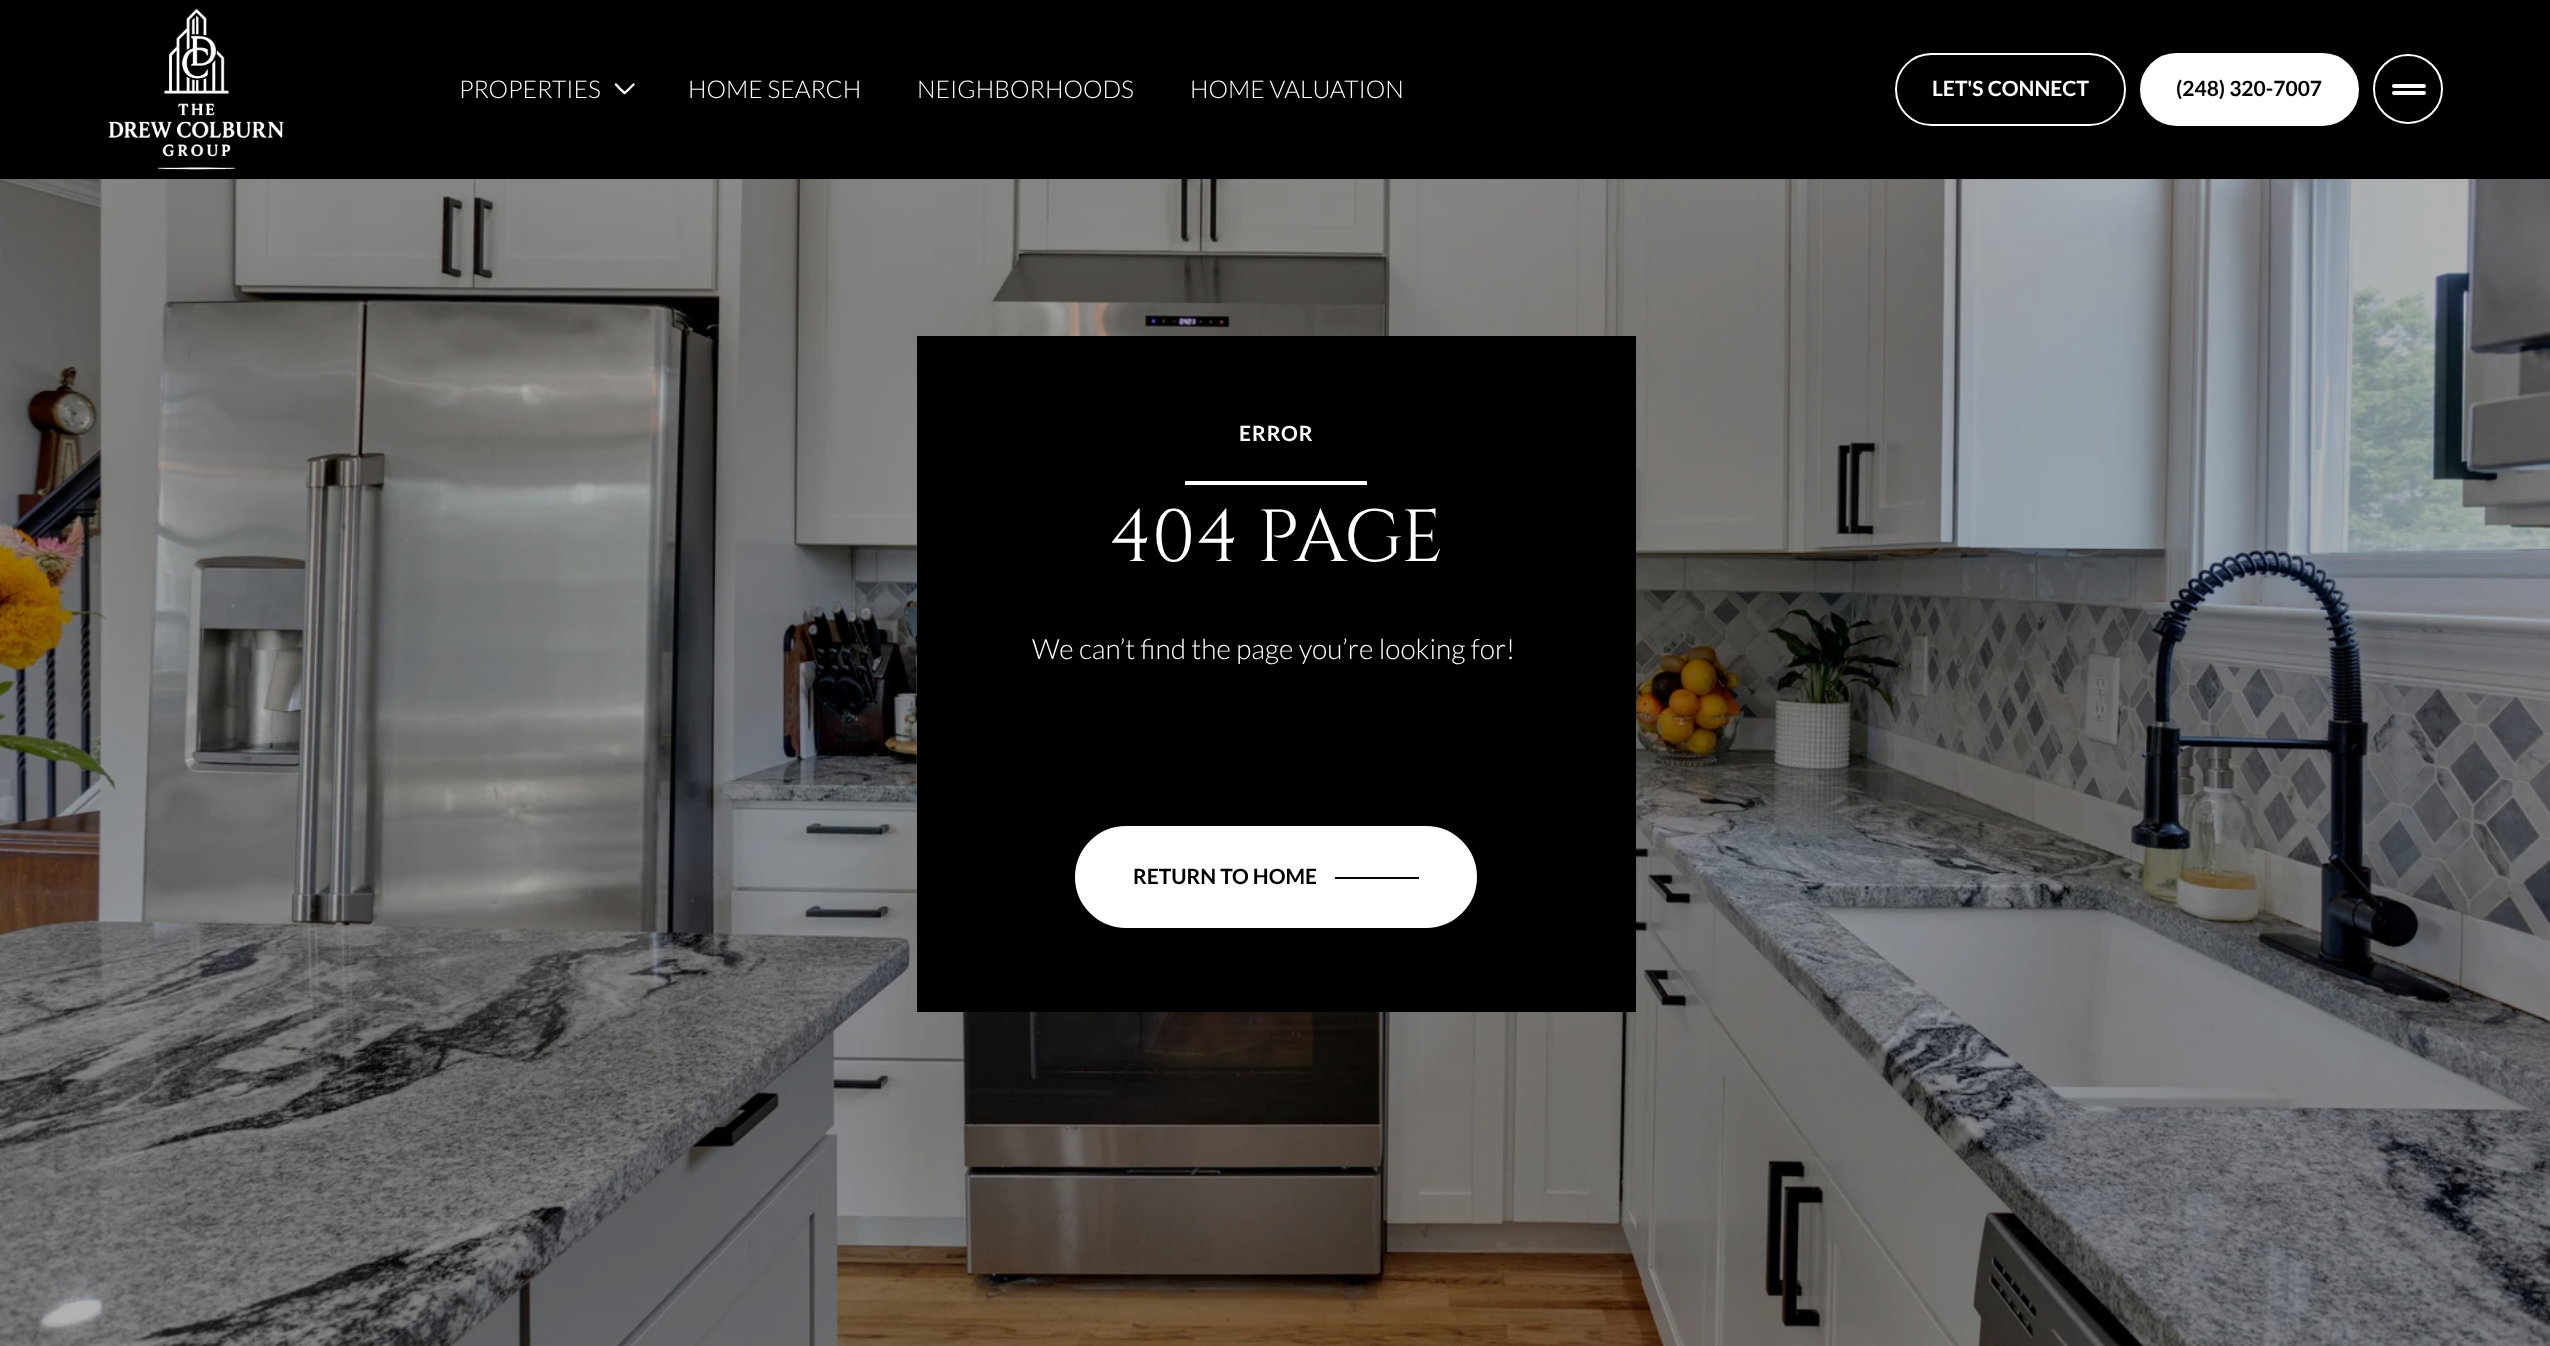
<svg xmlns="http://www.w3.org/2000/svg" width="2550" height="1346">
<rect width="100%" height="100%" fill="#fff"/>
<rect width="2550" height="179" fill="#000"/>
<image x="108" y="8" width="176" height="162" href="media/1.png"/>
<text x="459" y="98" style="font-family:Lato;font-size:24.5px;font-weight:300;fill:#fff">PROPERTIES</text>
<path d="M616 84.5c3 3.5 5 5.5 8.5 8.5c4-3 5.5-5 9-8.5" fill="none" stroke="#fff" stroke-width="2.4" stroke-linecap="round" stroke-linejoin="round"/>
<text x="688" y="98" style="font-family:Lato;font-size:24.5px;font-weight:300;fill:#fff">HOME SEARCH</text>
<text x="917" y="98" style="font-family:Lato;font-size:24.5px;font-weight:300;fill:#fff">NEIGHBORHOODS</text>
<text x="1190" y="98" style="font-family:Lato;font-size:24.5px;font-weight:300;fill:#fff">HOME VALUATION</text>
<rect x="1896" y="54" width="229" height="71" rx="35.5" fill="none" stroke="#fff" stroke-width="2"/>
<text x="1932" y="96" style="font-family:Lato;font-size:21px;font-weight:bold;fill:#fff">LET'S CONNECT</text>
<rect x="2141" y="54" width="217" height="71" rx="35.5" fill="#fff" stroke="#fff" stroke-width="2"/>
<text x="2176" y="96" style="font-family:Lato;font-size:21px;font-weight:bold;fill:#000">(248) 320-7007</text>
<circle cx="2408" cy="89" r="34" fill="none" stroke="#fff" stroke-width="2"/>
<rect x="2392" y="84" width="34" height="4" rx="2" fill="#fff"/>
<rect x="2392" y="91" width="34" height="4" rx="2" fill="#fff"/>
<image x="0" y="179" width="2550" height="1167" href="media/2.png"/>
<rect x="917" y="336" width="719" height="676" fill="#000"/>
<text x="1239" y="441" style="font-family:Lato;font-size:21px;font-weight:bold;letter-spacing:1px;fill:#fff">ERROR</text>
<rect x="1185" y="481" width="182" height="4" fill="#fff"/>
<text x="1109" y="561" style="font-family:Cinzel;font-size:73.5px;fill:#fff">404 PAGE</text>
<text x="1032" y="659" style="font-family:Lato;font-size:28px;font-weight:300;fill:#fff">We can’t find the page you’re looking for!</text>
<rect x="1076" y="827" width="400" height="100" rx="50" fill="#fff" stroke="#fff" stroke-width="2"/>
<text x="1133" y="884" style="font-family:Lato;font-size:21px;font-weight:bold;fill:#000">RETURN TO HOME</text>
<rect x="1335" y="877" width="84" height="2" fill="#000"/>
</svg>
